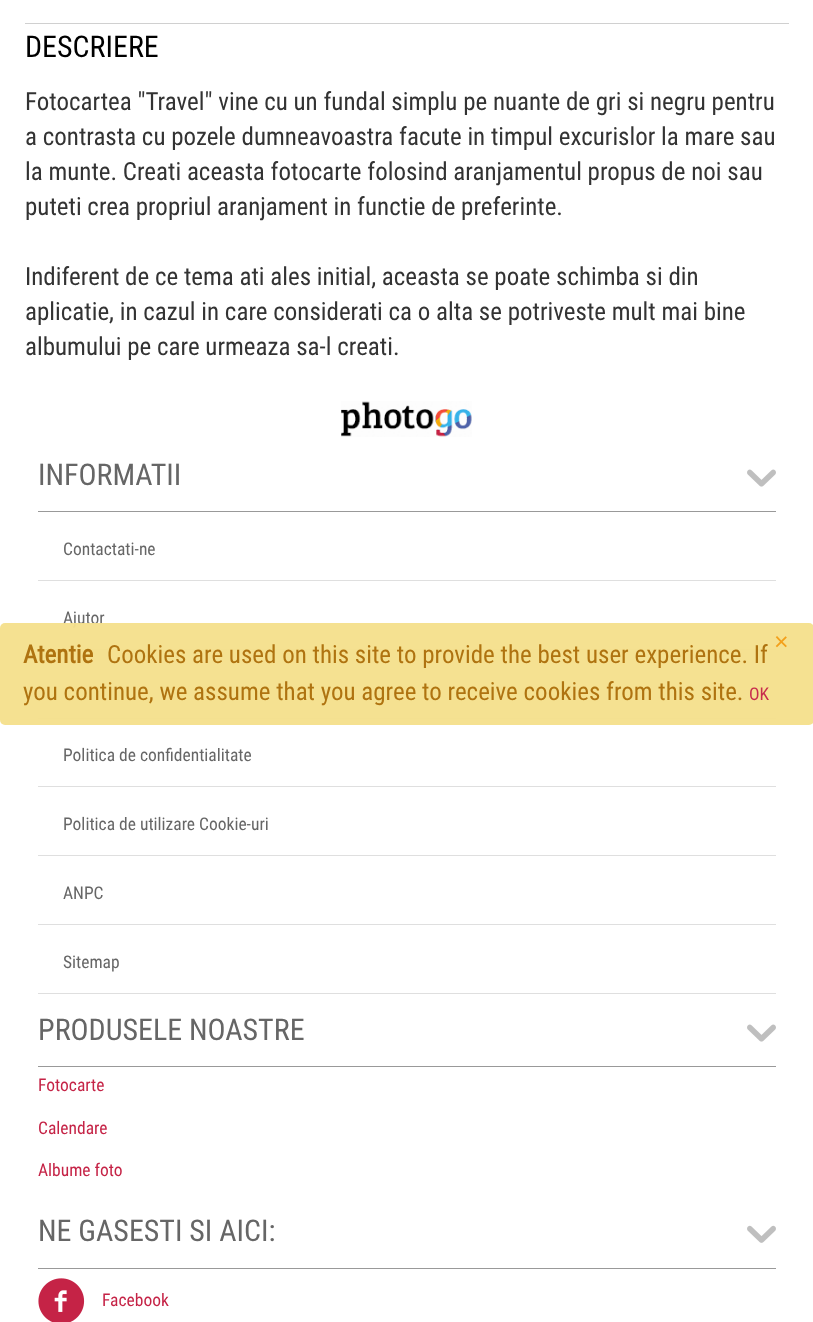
<svg xmlns="http://www.w3.org/2000/svg" width="813" height="1322">
<rect width="100%" height="100%" fill="#fff"/>
<rect x="25" y="23" width="764" height="1" fill="#d0d0d0"/>
<text x="25" y="57" style="font-family:Roboto Condensed;font-size:30px;fill:#000">DESCRIERE</text>
<text x="25" y="110" style="font-family:Roboto Condensed;font-size:25px;fill:#333">Fotocartea "Travel" vine cu un fundal simplu pe nuante de gri si negru pentru</text>
<text x="25" y="145" style="font-family:Roboto Condensed;font-size:25px;fill:#333">a contrasta cu pozele dumneavoastra facute in timpul excurislor la mare sau</text>
<text x="25" y="180" style="font-family:Roboto Condensed;font-size:25px;fill:#333">la munte. Creati aceasta fotocarte folosind aranjamentul propus de noi sau</text>
<text x="25" y="215" style="font-family:Roboto Condensed;font-size:25px;fill:#333">puteti crea propriul aranjament in functie de preferinte.</text>
<text x="25" y="285" style="font-family:Roboto Condensed;font-size:25px;fill:#333">Indiferent de ce tema ati ales initial, aceasta se poate schimba si din</text>
<text x="25" y="320" style="font-family:Roboto Condensed;font-size:25px;fill:#333">aplicatie, in cazul in care considerati ca o alta se potriveste mult mai bine</text>
<text x="25" y="355" style="font-family:Roboto Condensed;font-size:25px;fill:#333">albumului pe care urmeaza sa-l creati.</text>
<image x="341" y="401" width="131" height="36" href="media/1.png"/>
<rect x="38" y="511" width="738" height="1" fill="#999"/>
<text x="38" y="485" style="font-family:Roboto Condensed;font-size:30px;fill:#666">INFORMATII</text>
<image x="747" y="469" width="29" height="18" href="media/2.png"/>
<rect x="38" y="580" width="738" height="1" fill="#dfdfdf"/>
<text x="63" y="555" style="font-family:Roboto Condensed;font-size:17.5px;fill:#666">Contactati-ne</text>
<rect x="38" y="649" width="738" height="1" fill="#dfdfdf"/>
<text x="63" y="624" style="font-family:Roboto Condensed;font-size:17.5px;fill:#666">Ajutor</text>
<rect x="38" y="718" width="738" height="1" fill="#dfdfdf"/>
<rect x="38" y="786" width="738" height="1" fill="#dfdfdf"/>
<text x="63" y="761" style="font-family:Roboto Condensed;font-size:17.5px;fill:#666">Politica de confidentialitate</text>
<rect x="38" y="855" width="738" height="1" fill="#dfdfdf"/>
<text x="63" y="830" style="font-family:Roboto Condensed;font-size:17.5px;fill:#666">Politica de utilizare Cookie-uri</text>
<rect x="38" y="924" width="738" height="1" fill="#dfdfdf"/>
<text x="63" y="899" style="font-family:Roboto Condensed;font-size:17.5px;fill:#666">ANPC</text>
<rect x="38" y="993" width="738" height="1" fill="#dfdfdf"/>
<text x="63" y="968" style="font-family:Roboto Condensed;font-size:17.5px;fill:#666">Sitemap</text>
<rect x="38" y="1066" width="738" height="1" fill="#999"/>
<text x="38" y="1040" style="font-family:Roboto Condensed;font-size:30px;fill:#666">PRODUSELE NOASTRE</text>
<image x="747" y="1024" width="29" height="18" href="media/2.png"/>
<text x="38" y="1091" style="font-family:Roboto Condensed;font-size:17.5px;fill:#c52346">Fotocarte</text>
<text x="38" y="1134" style="font-family:Roboto Condensed;font-size:17.5px;fill:#c52346">Calendare</text>
<text x="38" y="1176" style="font-family:Roboto Condensed;font-size:17.5px;fill:#c52346">Albume foto</text>
<rect x="38" y="1268" width="738" height="1" fill="#999"/>
<text x="38" y="1241" style="font-family:Roboto Condensed;font-size:30px;fill:#666">NE GASESTI SI AICI:</text>
<image x="747" y="1225" width="29" height="18" href="media/3.png"/>
<image x="38" y="1278" width="47" height="44" href="media/4.png"/>
<text x="102" y="1306" style="font-family:Roboto Condensed;font-size:17.5px;fill:#c52346">Facebook</text>
<rect y="623" width="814" height="102" rx="5" fill="#f5e08cf5"/>
<text x="774" y="650" style="font-family:Liberation Sans;font-size:25px;fill:#f3a01b">×</text>
<text x="23" y="663" style="font-family:Roboto Condensed;font-size:25px;font-weight:bold;fill:#af7310">Atentie</text>
<text x="107" y="663" style="font-family:Roboto Condensed;font-size:25px;fill:#af7310">Cookies are used on this site to provide the best user experience. If</text>
<text x="23" y="700" style="font-family:Roboto Condensed;font-size:25px;fill:#af7310">you continue, we assume that you agree to receive cookies from this site.</text>
<text x="749" y="700" style="font-family:Roboto Condensed;font-size:17.5px;fill:#c72c4d">OK</text>
</svg>
